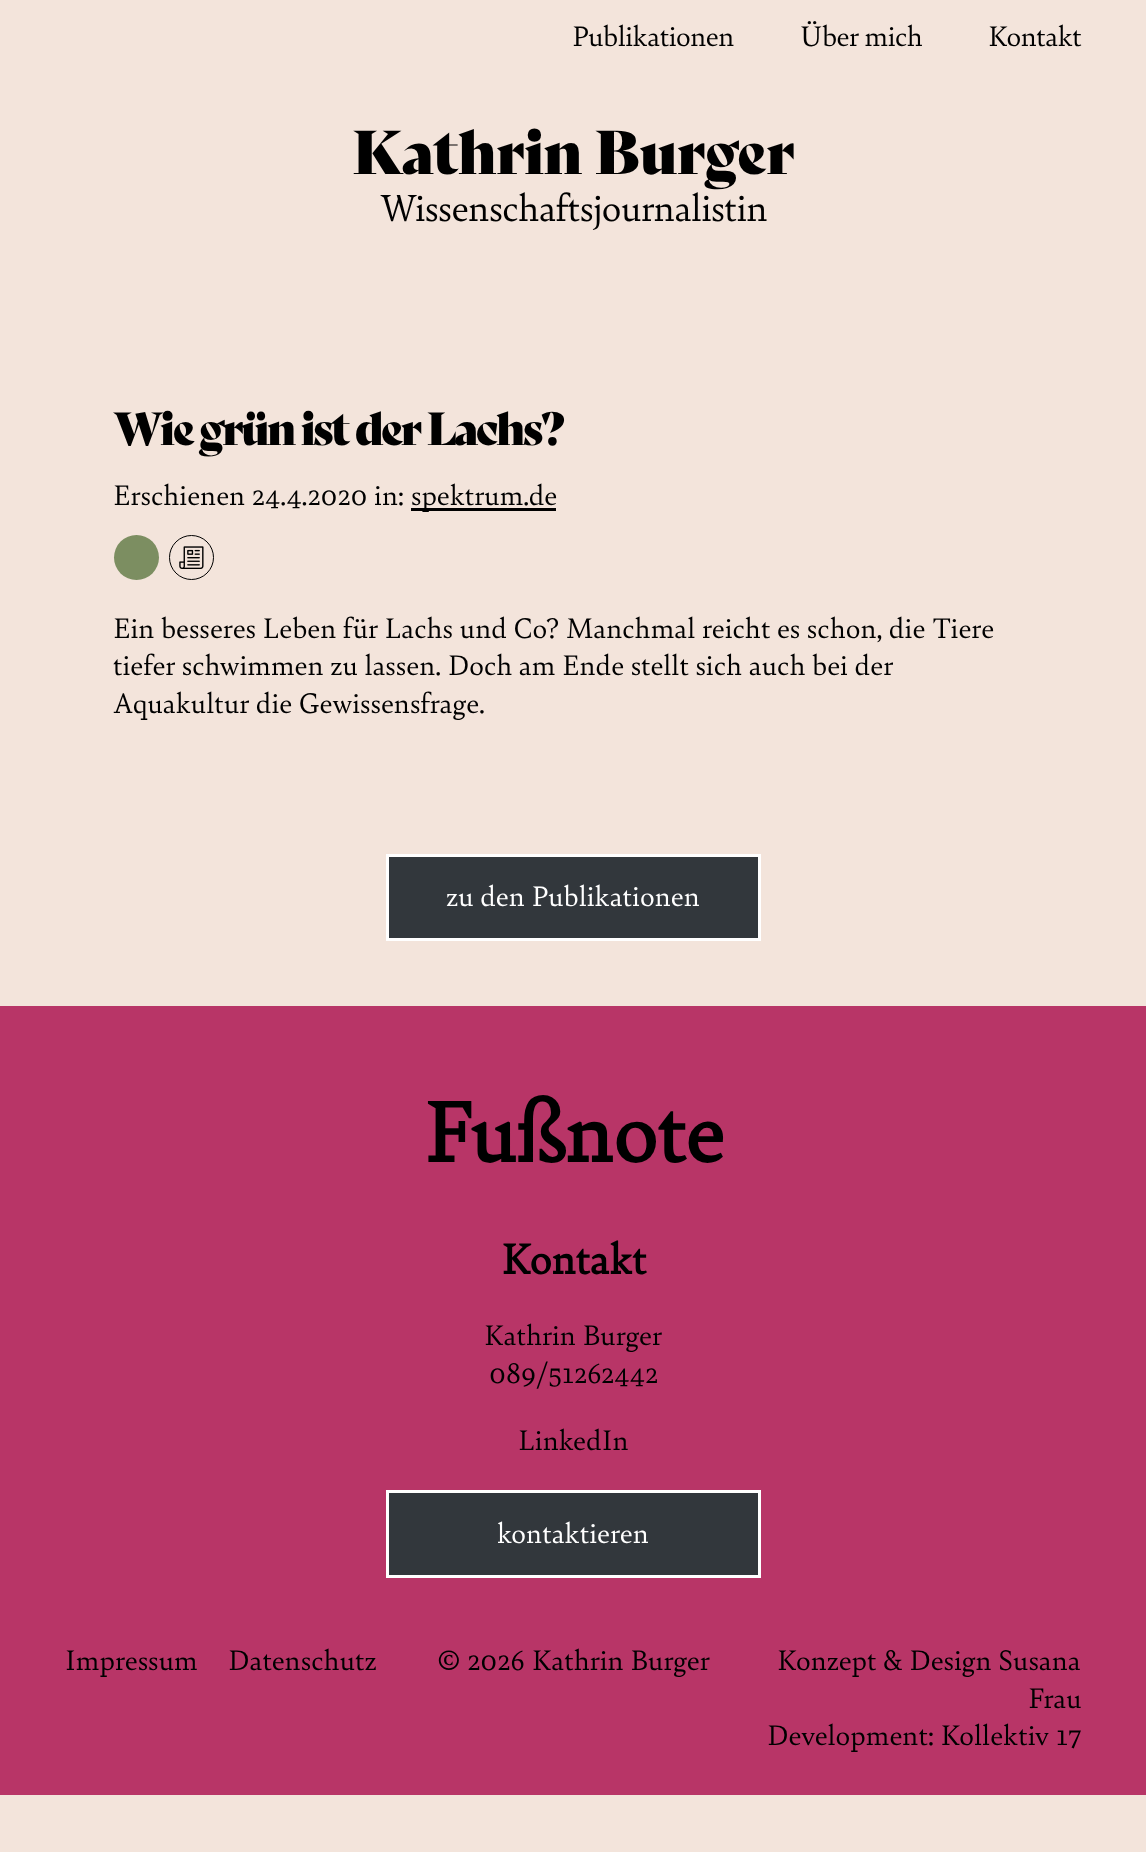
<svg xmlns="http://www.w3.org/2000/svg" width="1146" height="1852">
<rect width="100%" height="100%" fill="#f3e4db"/>
<text x="572" y="46" style="font-family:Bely;font-size:30px;letter-spacing:-0.5px;fill:#000">Publikationen</text>
<text x="800" y="46" style="font-family:Bely;font-size:30px;letter-spacing:-0.5px;fill:#000">Über mich</text>
<text x="988" y="46" style="font-family:Bely;font-size:30px;letter-spacing:-0.5px;fill:#000">Kontakt</text>
<text x="352" y="174" style="font-family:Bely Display;font-size:60px;letter-spacing:-0.9px;fill:#000">Kathrin Burger</text>
<text x="380" y="221" style="font-family:Bely;font-size:40px;letter-spacing:-0.6px;fill:#000">Wissenschaftsjournalistin</text>
<text x="113" y="445" style="font-family:Bely Display;font-size:45px;letter-spacing:-2.8px;fill:#000">Wie grün ist der Lachs?</text>
<text x="113" y="505" style="font-family:Bely;font-size:30px;fill:#000">Erschienen 24.4.2020 in:</text>
<rect x="411" y="508" width="145" height="3" fill="#000"/>
<text x="411" y="505" style="font-family:Bely;font-size:30px;fill:#000">spektrum.de</text>
<circle cx="136.5" cy="557.5" r="22.5" fill="#7c8e61"/>
<image x="179" y="546" width="25" height="23" href="media/1.png"/>
<circle cx="191.5" cy="557.5" r="22" fill="none" stroke="#000"/>
<text x="113" y="638" style="font-family:Bely;font-size:30px;fill:#000">Ein besseres Leben für Lachs und Co? Manchmal reicht es schon, die Tiere</text>
<text x="113" y="675" style="font-family:Bely;font-size:30px;fill:#000">tiefer schwimmen zu lassen. Doch am Ende stellt sich auch bei der</text>
<text x="113" y="713" style="font-family:Bely;font-size:30px;fill:#000">Aquakultur die Gewissensfrage.</text>
<rect x="387.5" y="855.5" width="372" height="84" fill="#32373c" stroke="#fff" stroke-width="3"/>
<text x="446" y="906" style="font-family:Bely;font-size:30px;fill:#fff">zu den Publikationen</text>
<rect y="1006" width="1146" height="789" fill="#b83567"/>
<text x="423" y="1162" style="font-family:Bely;font-size:90px;font-weight:bold;fill:#000">Fußnote</text>
<text x="501" y="1274" style="font-family:Bely;font-size:45px;font-weight:bold;fill:#000">Kontakt</text>
<text x="484" y="1345" style="font-family:Bely;font-size:30px;fill:#000">Kathrin Burger</text>
<text x="489" y="1383" style="font-family:Bely;font-size:30px;fill:#000">089/51262442</text>
<text x="518" y="1450" style="font-family:Bely;font-size:30px;fill:#000">LinkedIn</text>
<rect x="387.5" y="1491.5" width="372" height="85" fill="#32373c" stroke="#fff" stroke-width="3"/>
<text x="497" y="1543" style="font-family:Bely;font-size:30px;fill:#fff">kontaktieren</text>
<text x="65" y="1670" style="font-family:Bely;font-size:30px;fill:#000">Impressum</text>
<text x="228" y="1670" style="font-family:Bely;font-size:30px;fill:#000">Datenschutz</text>
<text x="437" y="1670" style="font-family:Bely;font-size:30px;fill:#000">© 2026 Kathrin Burger</text>
<text x="777" y="1670" style="font-family:Bely;font-size:30px;fill:#000">Konzept &amp; Design Susana</text>
<text x="1028" y="1708" style="font-family:Bely;font-size:30px;fill:#000">Frau</text>
<text x="767" y="1745" style="font-family:Bely;font-size:30px;fill:#000">Development: Kollektiv 17</text>
</svg>
